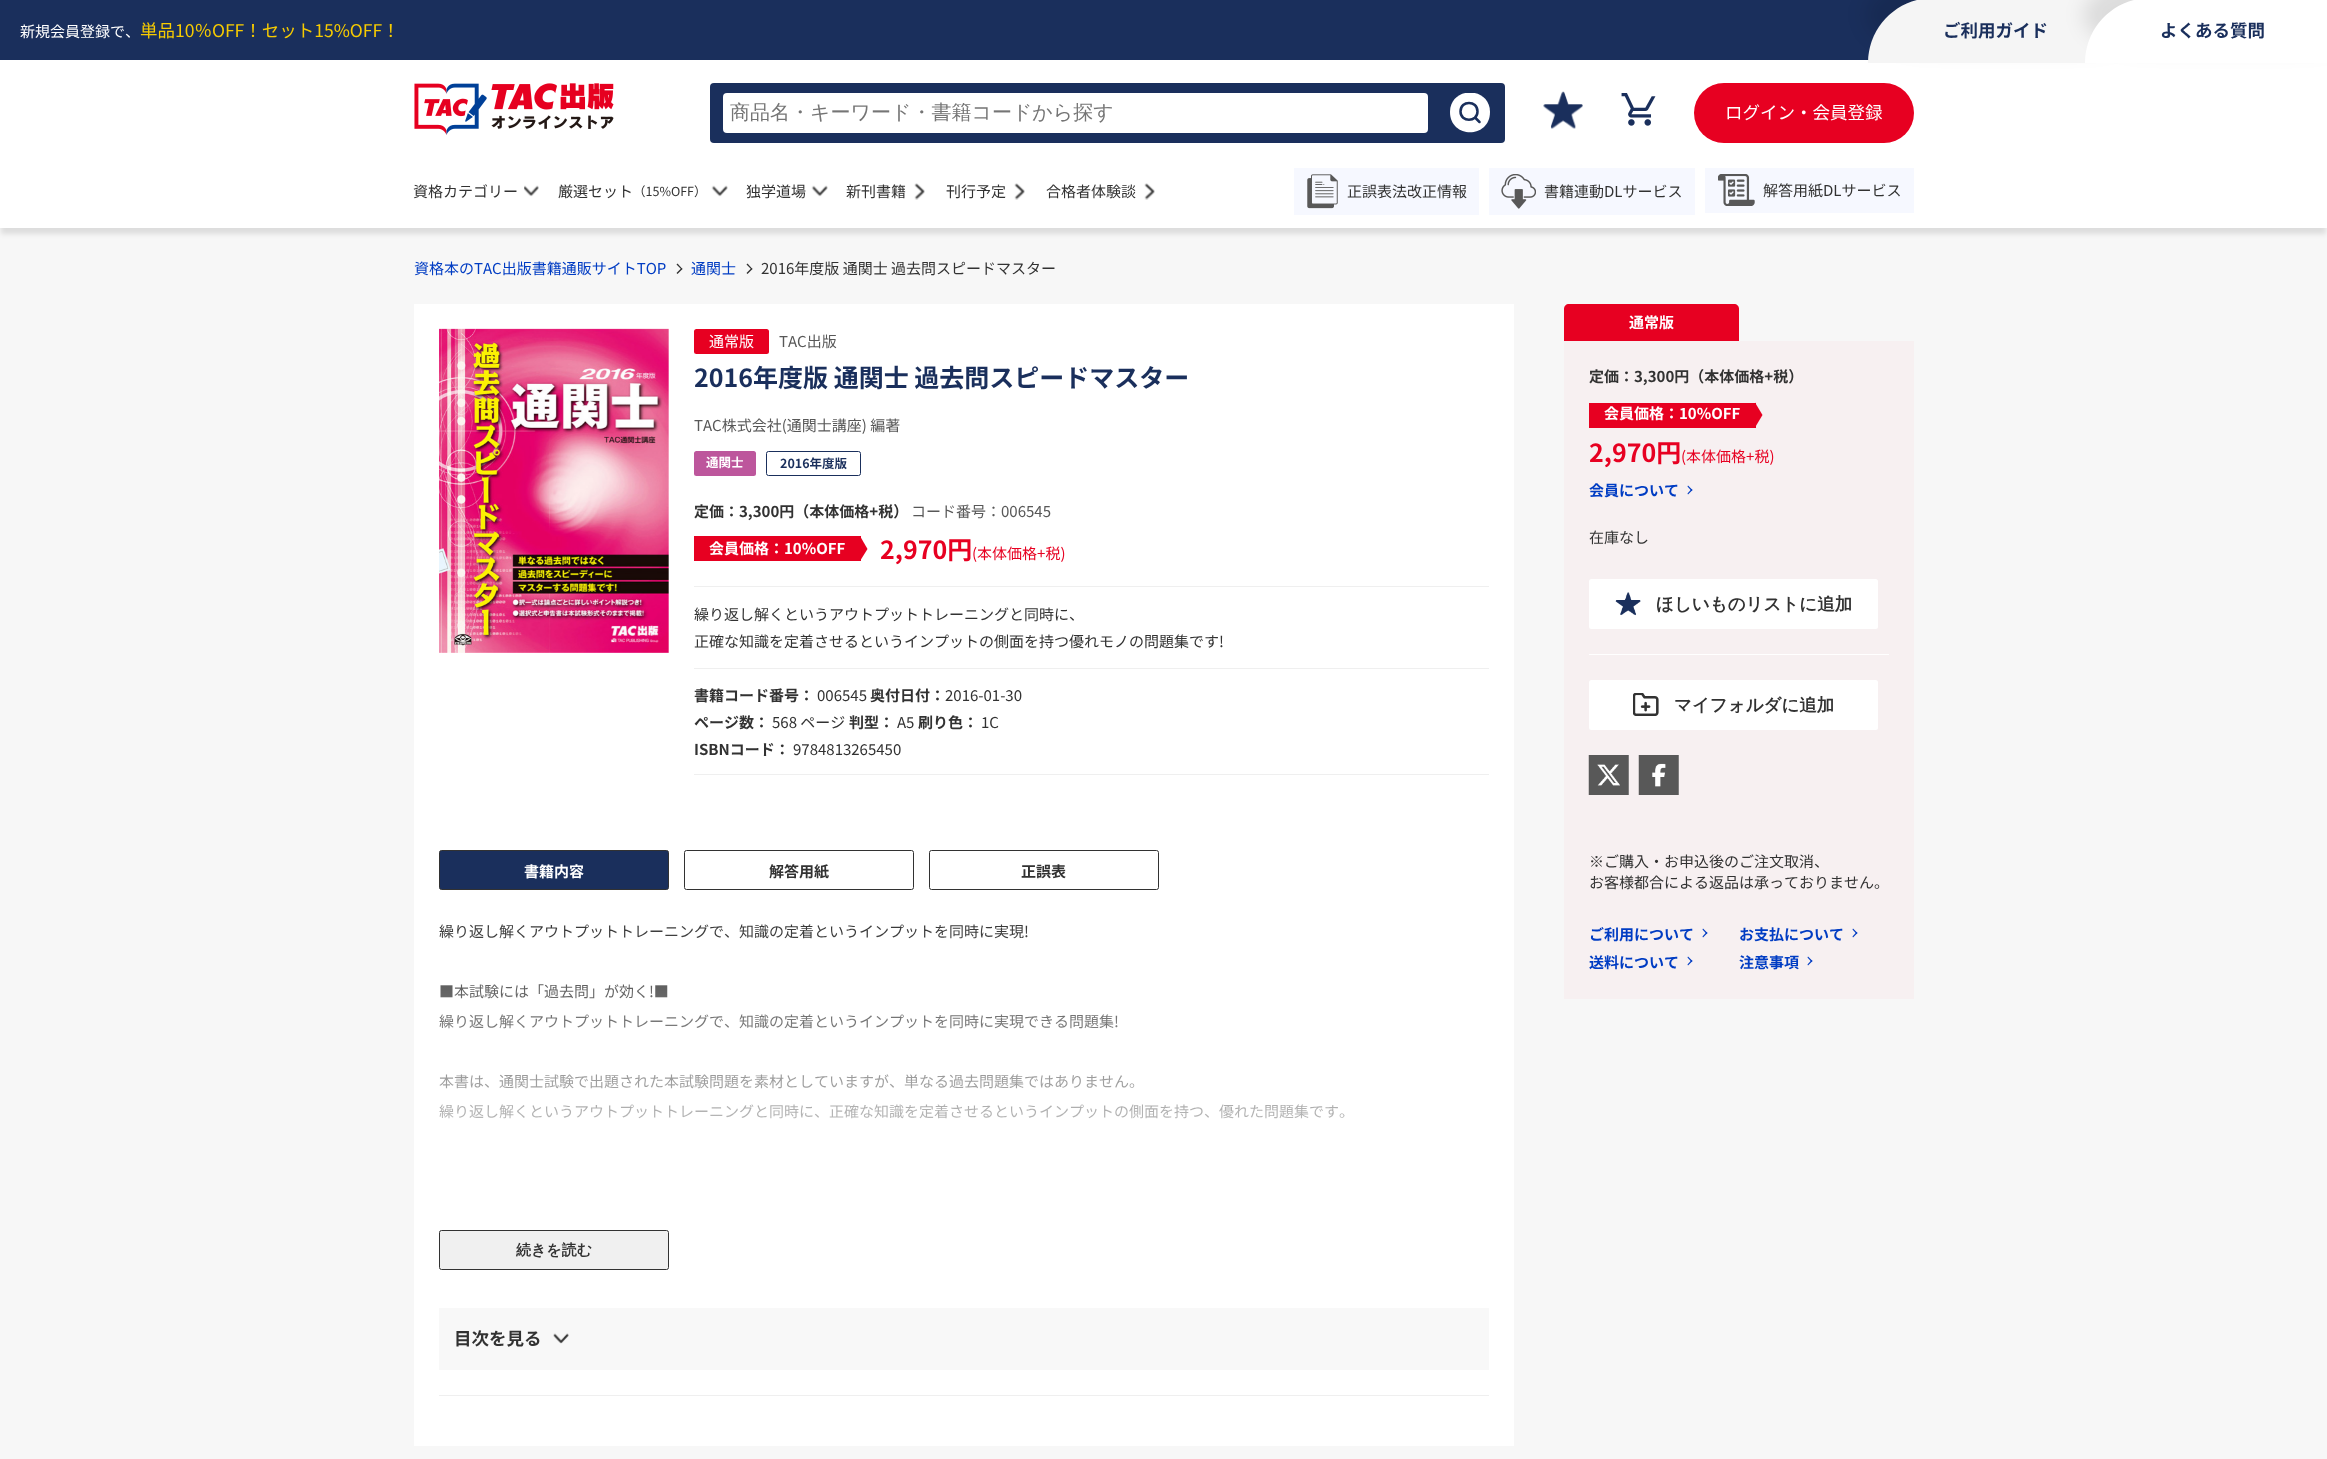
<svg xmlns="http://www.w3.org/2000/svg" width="2327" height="1459">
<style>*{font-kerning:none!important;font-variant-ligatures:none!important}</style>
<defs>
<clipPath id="clip1"><rect x="1450" y="93" width="40" height="40"/></clipPath>
<linearGradient id="g1" gradientUnits="userSpaceOnUse" x1="964" y1="915" x2="964" y2="1230"><stop offset="0" stop-color="#fff" stop-opacity="0"/><stop offset="1" stop-color="#fff"/></linearGradient>
</defs>
<rect width="100%" height="100%" fill="#f7f7f7"/>
<rect x="1" y="9" width="2325" height="225" fill="#0000001a" filter="blur(2.5px)"/>
<rect y="60" width="2327" height="168" fill="#fff"/>
<rect width="1917" height="60" fill="#1a2f5c"/>
<text x="20" y="37" style="font-family:Noto Sans JP;font-size:15px;fill:#fff">新規会員登録で、</text>
<text x="140" y="37" style="font-family:Noto Sans JP;font-size:17.5px;fill:#f7cb01">単品10％OFF！セット15%OFF！</text>
<rect x="1865" y="-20" width="285" height="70" rx="68" fill="#0000001a" filter="blur(9.5px)"/>
<path d="M1933-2h215v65h-280c0-36 29-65 65-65z" fill="#f5f5f5"/>
<text x="1943" y="37" style="font-family:Noto Sans JP;font-size:17.5px;font-weight:bold;fill:#1a2f5c">ご利用ガイド</text>
<rect x="2083" y="-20" width="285" height="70" rx="68" fill="#0000001a" filter="blur(9.5px)"/>
<path d="M2150-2h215v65h-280c0-36 29-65 65-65z" fill="#fff"/>
<text x="2160" y="37" style="font-family:Noto Sans JP;font-size:17.5px;font-weight:bold;fill:#1a2f5c">よくある質問</text>
<image x="414" y="83" width="200" height="52" href="media/1.png"/>
<rect x="710" y="83" width="795" height="60" rx="4" fill="#1a2f5c"/>
<rect x="723" y="93" width="705" height="40" rx="4" fill="#fff"/>
<text x="730" y="119" style="font-family:WenQuanYi Zen Hei;font-size:20px;font-weight:500;fill:#757575">商品名・キーワード・書籍コードから探す</text>
<g clip-path="url(#clip1)">
<path d="M1450 112c0-26 40-26 40 0c0 27-40 27-40 0z" fill="#fff"/>
</g>
<path d="M1477.5 111.5c0 11-17 11-17 0c0-11.5 17-11.5 17 0zm2 10.5l-4.5-4.5" fill="none" stroke="#1a2f5c" stroke-width="2.5" stroke-linecap="round" stroke-linejoin="round"/>
<image x="1543" y="91" width="40" height="38" href="media/2.png"/>
<image x="1621" y="93" width="35" height="33" href="media/3.png"/>
<rect x="1694" y="83" width="220" height="60" rx="30" fill="#e70021"/>
<text x="1725" y="119" style="font-family:Noto Sans JP;font-size:17.5px;fill:#fff">ログイン・会員登録</text>
<text x="413" y="197" style="font-family:Noto Sans JP;font-size:15px;fill:#323232">資格カテゴリー</text>
<image x="524" y="185" width="15" height="12" href="media/4.png"/>
<text x="558" y="197" style="font-family:Noto Sans JP;font-size:15px;fill:#323232">厳選セット</text>
<text x="633" y="196" style="font-family:Noto Sans JP;font-size:12.5px;fill:#323232">（15%OFF）</text>
<image x="711" y="185" width="17" height="12" href="media/5.png"/>
<text x="746" y="197" style="font-family:Noto Sans JP;font-size:15px;fill:#323232">独学道場</text>
<image x="811" y="185" width="17" height="12" href="media/5.png"/>
<text x="846" y="197" style="font-family:Noto Sans JP;font-size:15px;fill:#323232">新刊書籍</text>
<image x="914" y="183" width="11" height="17" href="media/6.png"/>
<text x="946" y="197" style="font-family:Noto Sans JP;font-size:15px;fill:#323232">刊行予定</text>
<image x="1014" y="183" width="11" height="17" href="media/6.png"/>
<text x="1046" y="197" style="font-family:Noto Sans JP;font-size:15px;fill:#323232">合格者体験談</text>
<image x="1144" y="183" width="11" height="17" href="media/6.png"/>
<rect x="1294" y="168" width="185" height="47" fill="#f6f8ff"/>
<image x="1307" y="174" width="31" height="35" href="media/7.png"/>
<text x="1347" y="197" style="font-family:Noto Sans JP;font-size:15px;fill:#323232">正誤表法改正情報</text>
<rect x="1489" y="168" width="206" height="47" fill="#f6f8ff"/>
<image x="1501" y="174" width="35" height="35" href="media/8.png"/>
<text x="1544" y="197" style="font-family:Noto Sans JP;font-size:15px;fill:#323232">書籍連動DLサービス</text>
<rect x="1705" y="168" width="209" height="45" fill="#f6f8ff"/>
<image x="1718" y="174" width="37" height="32" href="media/9.png"/>
<text x="1763" y="196" style="font-family:Noto Sans JP;font-size:15px;fill:#323232">解答用紙DLサービス</text>
<text x="414" y="274" style="font-family:Noto Sans JP;font-size:15px;fill:#003cc3">資格本のTAC出版書籍通販サイトTOP</text>
<path d="M677.5 263.5l5 5.5l-1 .5l-5-5z" fill="#323232"/>
<path d="M681.5 268l1 1l-5 5l-1-1z" fill="#323232"/>
<text x="691" y="274" style="font-family:Noto Sans JP;font-size:15px;fill:#003cc3">通関士</text>
<path d="M747.5 263.5l5 5.5l-1 .5l-5-5z" fill="#323232"/>
<path d="M751.5 268l1 1l-5 5l-1-1z" fill="#323232"/>
<text x="761" y="274" style="font-family:Noto Sans JP;font-size:15px;fill:#323232">2016年度版 通関士 過去問スピードマスター</text>
<rect x="414" y="304" width="1100" height="1142" fill="#fff"/>
<image x="439" y="328" width="230" height="325" href="media/10.png"/>
<rect x="694" y="586" width="795" height="1" fill="#efefef"/>
<rect x="694" y="329" width="75" height="25" rx="2.5" fill="#e70021"/>
<text x="709" y="347" style="font-family:Noto Sans JP;font-size:15px;fill:#fff">通常版</text>
<text x="779" y="347" style="font-family:Noto Sans JP;font-size:15px;fill:#585858">TAC出版</text>
<text x="694" y="387" style="font-family:Noto Sans JP;font-size:25px;font-weight:bold;fill:#1a2f5c">2016年度版 通関士 過去問スピードマスター</text>
<text x="694" y="431" style="font-family:Noto Sans JP;font-size:15px;fill:#585858">TAC株式会社(通関士講座) 編著</text>
<rect x="694" y="451" width="62" height="25" rx="2.5" fill="#bd569c"/>
<text x="706" y="467" style="font-family:Noto Sans JP;font-size:12.5px;font-weight:bold;fill:#fff">通関士</text>
<rect x="766.5" y="451.5" width="94" height="24" rx="2" fill="none" stroke="#1a2f5c"/>
<text x="780" y="468" style="font-family:Noto Sans JP;font-size:12.5px;font-weight:bold;fill:#1a2f5c">2016年度版</text>
<text x="694" y="517" style="font-family:Noto Sans JP;font-size:15px;font-weight:bold;fill:#323232">定価：3,300円（本体価格+税）</text>
<text x="911" y="517" style="font-family:Noto Sans JP;font-size:15px;fill:#585858">コード番号：006545</text>
<rect x="694" y="536" width="167" height="25" fill="#e70021"/>
<text x="709" y="554" style="font-family:Noto Sans JP;font-size:15px;font-weight:bold;fill:#fff">会員価格：10%OFF</text>
<path d="M860 561v-25l7.5 13z" fill="#e70021"/>
<text x="880" y="559" style="font-family:Noto Sans JP;font-size:25px;font-weight:bold;fill:#e70021">2,970円</text>
<text x="972" y="559" style="font-family:Noto Sans JP;font-size:15px;fill:#e70021">(本体価格+税)</text>
<rect x="694" y="668" width="795" height="1" fill="#efefef"/>
<text x="694" y="620" style="font-family:Noto Sans JP;font-size:15px;fill:#323232">繰り返し解くというアウトプットトレーニングと同時に、</text>
<text x="694" y="647" style="font-family:Noto Sans JP;font-size:15px;fill:#323232">正確な知識を定着させるというインプットの側面を持つ優れモノの問題集です!</text>
<rect x="694" y="774" width="795" height="1" fill="#efefef"/>
<text x="694" y="701" style="font-family:Noto Sans JP;font-size:15px;font-weight:bold;fill:#323232">書籍コード番号：</text>
<text x="817" y="701" style="font-family:Noto Sans JP;font-size:15px;fill:#323232">006545</text>
<text x="870" y="701" style="font-family:Noto Sans JP;font-size:15px;font-weight:bold;fill:#323232">奥付日付：</text>
<text x="945" y="701" style="font-family:Noto Sans JP;font-size:15px;fill:#323232">2016-01-30</text>
<text x="694" y="728" style="font-family:Noto Sans JP;font-size:15px;font-weight:bold;fill:#323232">ページ数：</text>
<text x="772" y="728" style="font-family:Noto Sans JP;font-size:15px;fill:#323232">568 ページ</text>
<text x="849" y="728" style="font-family:Noto Sans JP;font-size:15px;font-weight:bold;fill:#323232">判型：</text>
<text x="897" y="728" style="font-family:Noto Sans JP;font-size:15px;fill:#323232">A5</text>
<text x="918" y="728" style="font-family:Noto Sans JP;font-size:15px;font-weight:bold;fill:#323232">刷り色：</text>
<text x="981" y="728" style="font-family:Noto Sans JP;font-size:15px;fill:#323232">1C</text>
<text x="694" y="755" style="font-family:Noto Sans JP;font-size:15px;font-weight:bold;fill:#323232">ISBNコード：</text>
<text x="793" y="755" style="font-family:Noto Sans JP;font-size:15px;fill:#323232">9784813265450</text>
<rect x="439.5" y="850.5" width="229" height="39" rx="2" fill="#1a2f5c" stroke="#323232"/>
<text x="524" y="877" style="font-family:Noto Sans JP;font-size:15px;font-weight:bold;fill:#fff">書籍内容</text>
<rect x="684.5" y="850.5" width="229" height="39" rx="2" fill="none" stroke="#323232"/>
<text x="769" y="877" style="font-family:Noto Sans JP;font-size:15px;font-weight:bold;fill:#323232">解答用紙</text>
<rect x="929.5" y="850.5" width="229" height="39" rx="2" fill="none" stroke="#323232"/>
<text x="1021" y="877" style="font-family:Noto Sans JP;font-size:15px;font-weight:bold;fill:#323232">正誤表</text>
<text x="439" y="937" style="font-family:Noto Sans JP;font-size:15px;fill:#323232">繰り返し解くアウトプットトレーニングで、知識の定着というインプットを同時に実現!</text>
<text x="439" y="997" style="font-family:Noto Sans JP;font-size:15px;fill:#323232">■本試験には「過去問」が効く!■</text>
<text x="439" y="1027" style="font-family:Noto Sans JP;font-size:15px;fill:#323232">繰り返し解くアウトプットトレーニングで、知識の定着というインプットを同時に実現できる問題集!</text>
<text x="439" y="1087" style="font-family:Noto Sans JP;font-size:15px;fill:#323232">本書は、通関士試験で出題された本試験問題を素材としていますが、単なる過去問題集ではありません。</text>
<text x="439" y="1117" style="font-family:Noto Sans JP;font-size:15px;fill:#323232">繰り返し解くというアウトプットトレーニングと同時に、正確な知識を定着させるというインプットの側面を持つ、優れた問題集です。</text>
<rect x="439" y="924" width="905" height="195" fill="url(#g1)"/>
<rect x="439.5" y="1230.5" width="229" height="39" rx="2" fill="#f0f0f0" stroke="#323232"/>
<text x="516" y="1255" style="font-family:WenQuanYi Zen Hei;font-size:15px;font-weight:bold;fill:#323232">続きを読む</text>
<rect x="439" y="1395" width="1050" height="1" fill="#efefef"/>
<rect x="439" y="1308" width="1050" height="62" fill="#f8f8f8"/>
<text x="454" y="1345" style="font-family:Noto Sans JP;font-size:17.5px;font-weight:bold;fill:#323232">目次を見る</text>
<image x="553" y="1333" width="16" height="11" href="media/11.png"/>
<path d="M1569 304h165c3 0 5 2 5 5v32h-175v-32c0-3 2-5 5-5z" fill="#e70021"/>
<text x="1629" y="328" style="font-family:Noto Sans JP;font-size:15px;font-weight:bold;fill:#fff">通常版</text>
<rect x="1564" y="341" width="350" height="658" fill="#f7f0f1"/>
<rect x="1589" y="654" width="300" height="1" fill="#fff"/>
<text x="1589" y="382" style="font-family:Noto Sans JP;font-size:15px;font-weight:bold;fill:#323232">定価：3,300円（本体価格+税）</text>
<rect x="1589" y="403" width="167" height="25" fill="#e70021"/>
<text x="1604" y="419" style="font-family:Noto Sans JP;font-size:15px;font-weight:bold;fill:#fff">会員価格：10%OFF</text>
<path d="M1755 427.5v-25l7.5 12.5z" fill="#e70021"/>
<text x="1589" y="462" style="font-family:Noto Sans JP;font-size:25px;font-weight:bold;fill:#e70021">2,970円</text>
<text x="1681" y="462" style="font-family:Noto Sans JP;font-size:15px;fill:#e70021">(本体価格+税)</text>
<text x="1589" y="496" style="font-family:Noto Sans JP;font-size:15px;font-weight:bold;fill:#003cc3">会員について</text>
<path d="M1688 485.5l4.5 4.5l-1 1l-4-4.5z" fill="#003cc3"/>
<path d="M1691.5 489l1 1l-4.5 4.5l-.5-1z" fill="#003cc3"/>
<text x="1589" y="543" style="font-family:Noto Sans JP;font-size:15px;fill:#323232">在庫なし</text>
<rect x="1589" y="579" width="289" height="50" rx="2.5" fill="#fff"/>
<image x="1615" y="592" width="26" height="24" href="media/12.png"/>
<text x="1656" y="610" style="font-family:WenQuanYi Zen Hei;font-size:17.5px;font-weight:bold;fill:#323232">ほしいものリストに追加</text>
<rect x="1589" y="680" width="289" height="50" rx="2.5" fill="#fff"/>
<image x="1633" y="693" width="26" height="23" href="media/13.png"/>
<text x="1674" y="711" style="font-family:WenQuanYi Zen Hei;font-size:17.5px;font-weight:bold;fill:#323232">マイフォルダに追加</text>
<image x="1588" y="755" width="41" height="40" href="media/14.png"/>
<image x="1638" y="755" width="41" height="40" href="media/15.png"/>
<text x="1589" y="867" style="font-family:Noto Sans JP;font-size:15px;fill:#323232">※ご購入・お申込後のご注文取消、</text>
<text x="1589" y="888" style="font-family:Noto Sans JP;font-size:15px;fill:#323232">お客様都合による返品は承っておりません。</text>
<text x="1589" y="940" style="font-family:Noto Sans JP;font-size:15px;font-weight:bold;fill:#003cc3">ご利用について</text>
<path d="M1703 928.5l4.5 4.5l-1 1l-4-4.5z" fill="#003cc3"/>
<path d="M1706.5 932l1 1l-4.5 4.5l-.5-1z" fill="#003cc3"/>
<text x="1739" y="940" style="font-family:Noto Sans JP;font-size:15px;font-weight:bold;fill:#003cc3">お支払について</text>
<path d="M1853 928.5l4.5 4.5l-1 1l-4-4.5z" fill="#003cc3"/>
<path d="M1856.5 932l1 1l-4.5 4.5l-.5-1z" fill="#003cc3"/>
<text x="1589" y="968" style="font-family:Noto Sans JP;font-size:15px;font-weight:bold;fill:#003cc3">送料について</text>
<path d="M1688 956.5l4.5 4.5l-1 1l-4-4.5z" fill="#003cc3"/>
<path d="M1691.5 960l1 1l-4.5 4.5l-.5-1z" fill="#003cc3"/>
<text x="1739" y="968" style="font-family:Noto Sans JP;font-size:15px;font-weight:bold;fill:#003cc3">注意事項</text>
<path d="M1808 956.5l4.5 4.5l-1 1l-4-4.5z" fill="#003cc3"/>
<path d="M1811.5 960l1 1l-4.5 4.5l-.5-1z" fill="#003cc3"/>
</svg>
